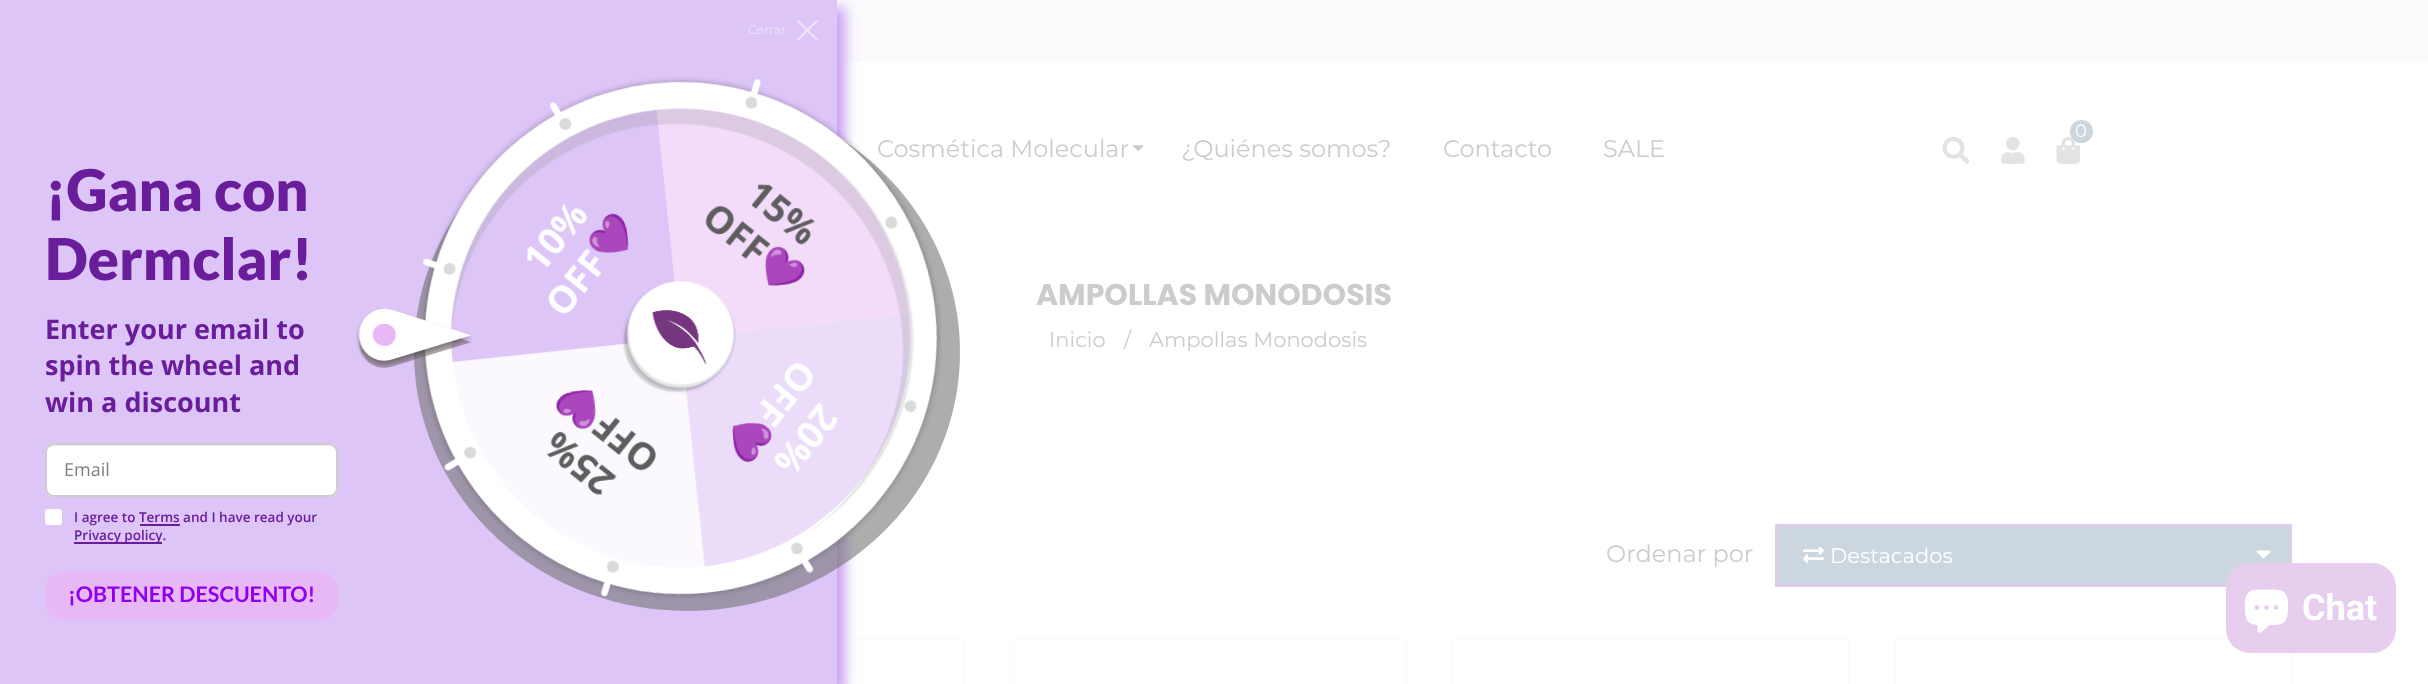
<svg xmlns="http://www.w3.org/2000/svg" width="2428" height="684">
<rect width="100%" height="100%" fill="#fff"/>
<rect x="837" width="1591" height="62" fill="#fbfafd"/>
<rect x="568" y="640" width="396" height="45" fill="none" stroke="#fafafa" stroke-width="2"/>
<rect x="837" y="640" width="126" height="1" fill="#fff"/>
<rect x="8" y="8" width="837" height="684" fill="#c69ef2" filter="blur(6.5px)"/>
<rect width="837" height="684" fill="#ddc5f7"/>
<text x="748" y="34" style="font-family:Montserrat;font-size:12.5px;fill:#eee2fb">Cerrar</text>
<image x="797" y="20" width="21" height="21" href="media/1.png"/>
<text x="45" y="211" style="font-family:Lato;font-size:57.5px;font-weight:900;fill:#691d9b">¡Gana con</text>
<text x="45" y="280" style="font-family:Lato;font-size:57.5px;font-weight:900;fill:#691d9b">Dermclar!</text>
<text x="45" y="339" style="font-family:Open Sans;font-size:27px;font-weight:bold;fill:#691d9b">Enter your email to</text>
<text x="45" y="375" style="font-family:Open Sans;font-size:27px;font-weight:bold;fill:#691d9b">spin the wheel and</text>
<text x="45" y="412" style="font-family:Open Sans;font-size:27px;font-weight:bold;fill:#691d9b">win a discount</text>
<rect x="45" y="443" width="293" height="54" rx="9" fill="#fff"/>
<path d="M54 446h274c5 0 8 3 8 7v-1c0-4-4-8-8-8h-273c-3 0-6 2-7 5c1-2 4-3 6-3z" fill="#ececec"/>
<rect x="46" y="444" width="291" height="52" rx="8" fill="none" stroke="#ccc" stroke-width="2"/>
<text x="64" y="476" style="font-family:Open Sans;font-size:18px;fill:#808080">Email</text>
<rect x="45" y="509" width="17" height="16" rx="3" fill="#fff"/>
<text x="74" y="522" style="font-family:Open Sans;font-size:13.5px;font-weight:600;fill:#691d9b">I agree to Terms and I have read your</text>
<rect x="140" y="524" width="40" height="2" fill="#691d9b"/>
<rect x="74" y="542" width="88" height="2" fill="#691d9b"/>
<text x="74" y="540" style="font-family:Open Sans;font-size:13.5px;font-weight:600;fill:#691d9b">Privacy policy.</text>
<rect x="45" y="572" width="293" height="48" rx="18" fill="#e8b8f6"/>
<text x="68" y="602" style="font-family:Lato;font-size:21.6px;font-weight:bold;fill:#9100ee">¡OBTENER DESCUENTO!</text>
<text x="877" y="157" style="font-family:Montserrat;font-size:24px;fill:#ccc">Cosmética Molecular</text>
<path d="M687 611c151 0 273-116 273-259c0-142-122-258-273-258c-151 0-273 116-273 258c0 143 122 259 273 259z" fill="#72727294"/>
<image x="420" y="77" width="522" height="522" href="media/2.png"/>
<image x="450" y="108" width="464" height="422" href="media/3.png"/>
<image x="652" y="310" width="55" height="54" href="media/4.png"/>
<image x="356" y="308" width="116" height="60" href="media/5.png"/>
<image x="2056" y="136" width="25" height="28" href="media/6.png"/>
<circle cx="2081.5" cy="131.5" r="11.5" fill="#ccd6de"/>
<text x="2075" y="137" style="font-family:Montserrat;font-size:18px;fill:#fff">0</text>
<image x="1942" y="136" width="28" height="28" href="media/7.png"/>
<image x="2001" y="136" width="24" height="28" href="media/8.png"/>
<image x="1132" y="145" width="12" height="7" href="media/9.png"/>
<text x="1181" y="157" style="font-family:Montserrat;font-size:24px;fill:#ccc">¿Quiénes somos?</text>
<text x="1443" y="157" style="font-family:Montserrat;font-size:24px;fill:#ccc">Contacto</text>
<text x="1603" y="157" style="font-family:Montserrat;font-size:24px;fill:#ccc">SALE</text>
<text x="1036" y="305" style="font-family:Poppins;font-size:30px;font-weight:bold;fill:#ccc">AMPOLLAS MONODOSIS</text>
<text x="1049" y="347" style="font-family:Montserrat;font-size:21px;fill:#ccc">Inicio</text>
<text x="1124" y="347" style="font-family:Montserrat;font-size:21px;fill:#ccc">/</text>
<text x="1149" y="347" style="font-family:Montserrat;font-size:21px;fill:#ccc">Ampollas Monodosis</text>
<text x="1606" y="562" style="font-family:Montserrat;font-size:24px;fill:#ccc">Ordenar por</text>
<rect x="1776.5" y="525.5" width="514" height="60" fill="#ccd6de" stroke="#ddcde9" stroke-width="3"/>
<image x="1803" y="546" width="21" height="17" href="media/10.png"/>
<text x="1830" y="563" style="font-family:Montserrat;font-size:21px;fill:#fff">Destacados</text>
<image x="2256" y="550" width="15" height="9" href="media/11.png"/>
<rect x="1011" y="640" width="395" height="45" fill="none" stroke="#fafafa" stroke-width="2"/>
<rect x="1011" y="640" width="395" height="44" fill="#fff"/>
<rect x="1453" y="640" width="396" height="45" fill="none" stroke="#fafafa" stroke-width="2"/>
<rect x="1453" y="640" width="395" height="44" fill="#fff"/>
<rect x="1896" y="640" width="395" height="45" fill="none" stroke="#fafafa" stroke-width="2"/>
<rect x="1896" y="640" width="395" height="44" fill="#fff"/>
<rect x="2226" y="563" width="170" height="90" rx="24" fill="#e7cdee"/>
<image x="2244" y="589" width="45" height="44" href="media/12.png"/>
<text x="2302" y="620" style="font-family:Roboto;font-size:36px;font-weight:bold;fill:#fff">Chat</text>
</svg>
